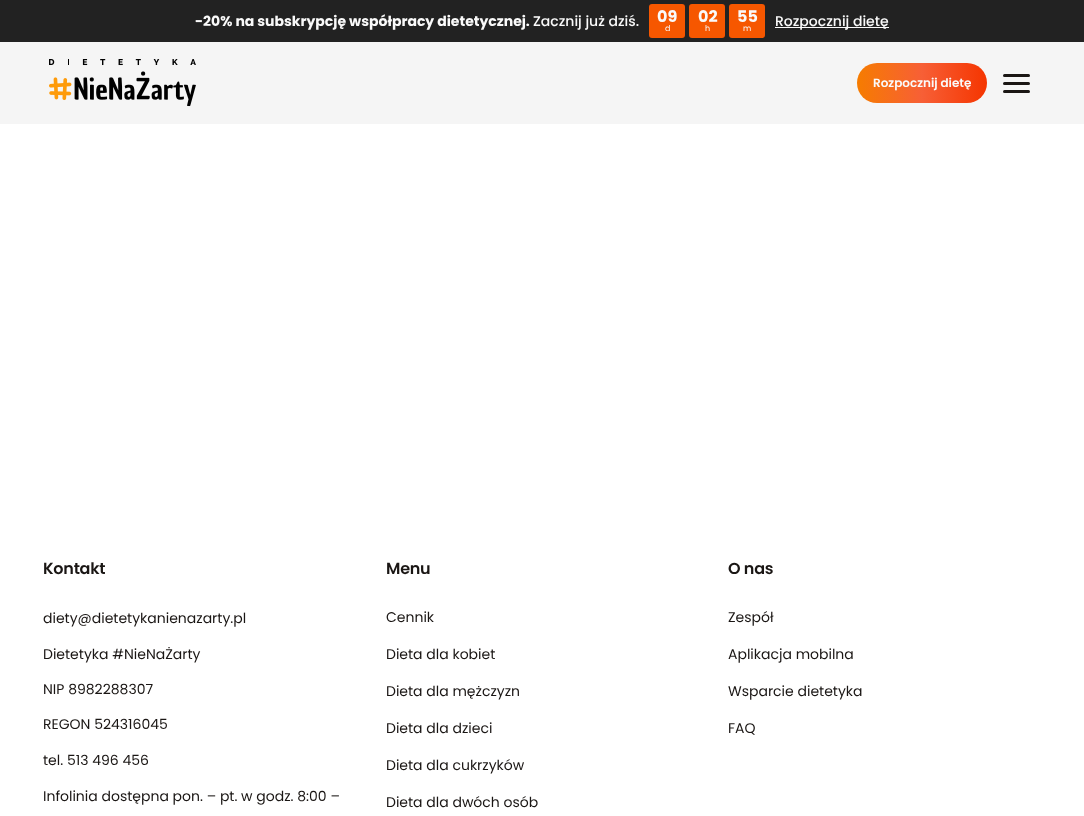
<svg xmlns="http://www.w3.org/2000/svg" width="1084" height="816">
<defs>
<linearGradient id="g1" gradientUnits="userSpaceOnUse" x1="857" y1="83" x2="987" y2="83"><stop offset="0" stop-color="#f67c00"/><stop offset="0.5" stop-color="#f75f36"/><stop offset="1" stop-color="#f53500"/></linearGradient>
</defs>
<rect width="100%" height="100%" fill="#fff"/>
<rect width="1084" height="42" fill="#222"/>
<text x="195" y="26" style="font-family:Poppins;font-size:14px;font-weight:bold;fill:#fafafa">-20% na subskrypcję współpracy dietetycznej.</text>
<text x="533" y="26" style="font-family:Poppins;font-size:14px;font-weight:500;fill:#fafafa">Zacznij już dziś.</text>
<rect x="649" y="4" width="36" height="34" rx="3" fill="#f65700"/>
<text x="657" y="22" style="font-family:Poppins;font-size:16px;font-weight:bold;fill:#fafafa">09</text>
<text x="665" y="31" style="font-family:Poppins;font-size:8px;fill:#fafafa">d</text>
<rect x="689" y="4" width="36" height="34" rx="3" fill="#f65700"/>
<text x="698" y="22" style="font-family:Poppins;font-size:16px;font-weight:bold;fill:#fafafa">02</text>
<text x="705" y="31" style="font-family:Poppins;font-size:8px;fill:#fafafa">h</text>
<rect x="729" y="4" width="36" height="34" rx="3" fill="#f65700"/>
<text x="737" y="22" style="font-family:Poppins;font-size:16px;font-weight:bold;fill:#fafafa">55</text>
<text x="743" y="31" style="font-family:Poppins;font-size:8px;fill:#fafafa">m</text>
<rect x="775" y="27" width="114" height="1" fill="#fafafa"/>
<text x="775" y="26" style="font-family:Poppins;font-size:14px;font-weight:500;fill:#fafafa">Rozpocznij dietę</text>
<rect y="42" width="1084" height="82" fill="#f5f5f5"/>
<image x="49" y="59" width="147" height="48" href="media/1.png"/>
<rect x="857" y="63" width="130" height="40" rx="20" fill="url(#g1)"/>
<text x="873" y="87" style="font-family:Poppins;font-size:12px;font-weight:600;fill:#fafafa">Rozpocznij dietę</text>
<rect x="1003" y="82" width="27" height="3" rx="1.5" fill="#1a1614"/>
<rect x="1003" y="74" width="27" height="3" rx="1.5" fill="#1a1614"/>
<rect x="1003" y="90" width="27" height="3" rx="1.5" fill="#1a1614"/>
<text x="43" y="574" style="font-family:Poppins;font-size:16px;font-weight:600;letter-spacing:-0.25px;fill:#1a1614">Kontakt</text>
<text x="43" y="623" style="font-family:Poppins;font-size:14px;fill:#1a1614">diety@dietetykanienazarty.pl</text>
<text x="43" y="659" style="font-family:Poppins;font-size:14px;fill:#1a1614">Dietetyka #NieNaŻarty</text>
<text x="43" y="694" style="font-family:Poppins;font-size:14px;fill:#1a1614">NIP 8982288307</text>
<text x="43" y="729" style="font-family:Poppins;font-size:14px;fill:#1a1614">REGON 524316045</text>
<text x="43" y="765" style="font-family:Poppins;font-size:14px;fill:#1a1614">tel. 513 496 456</text>
<text x="43" y="801" style="font-family:Poppins;font-size:14px;fill:#1a1614">Infolinia dostępna pon. – pt. w godz. 8:00 –</text>
<text x="386" y="574" style="font-family:Poppins;font-size:16px;font-weight:600;letter-spacing:-0.25px;fill:#1a1614">Menu</text>
<text x="386" y="622" style="font-family:Poppins;font-size:14px;fill:#1a1614">Cennik</text>
<text x="386" y="659" style="font-family:Poppins;font-size:14px;fill:#1a1614">Dieta dla kobiet</text>
<text x="386" y="696" style="font-family:Poppins;font-size:14px;fill:#1a1614">Dieta dla mężczyzn</text>
<text x="386" y="733" style="font-family:Poppins;font-size:14px;fill:#1a1614">Dieta dla dzieci</text>
<text x="386" y="770" style="font-family:Poppins;font-size:14px;fill:#1a1614">Dieta dla cukrzyków</text>
<text x="386" y="807" style="font-family:Poppins;font-size:14px;fill:#1a1614">Dieta dla dwóch osób</text>
<text x="728" y="574" style="font-family:Poppins;font-size:16px;font-weight:600;letter-spacing:-0.25px;fill:#1a1614">O nas</text>
<text x="728" y="622" style="font-family:Poppins;font-size:14px;fill:#1a1614">Zespół</text>
<text x="728" y="659" style="font-family:Poppins;font-size:14px;fill:#1a1614">Aplikacja mobilna</text>
<text x="728" y="696" style="font-family:Poppins;font-size:14px;fill:#1a1614">Wsparcie dietetyka</text>
<text x="728" y="733" style="font-family:Poppins;font-size:14px;fill:#1a1614">FAQ</text>
</svg>
